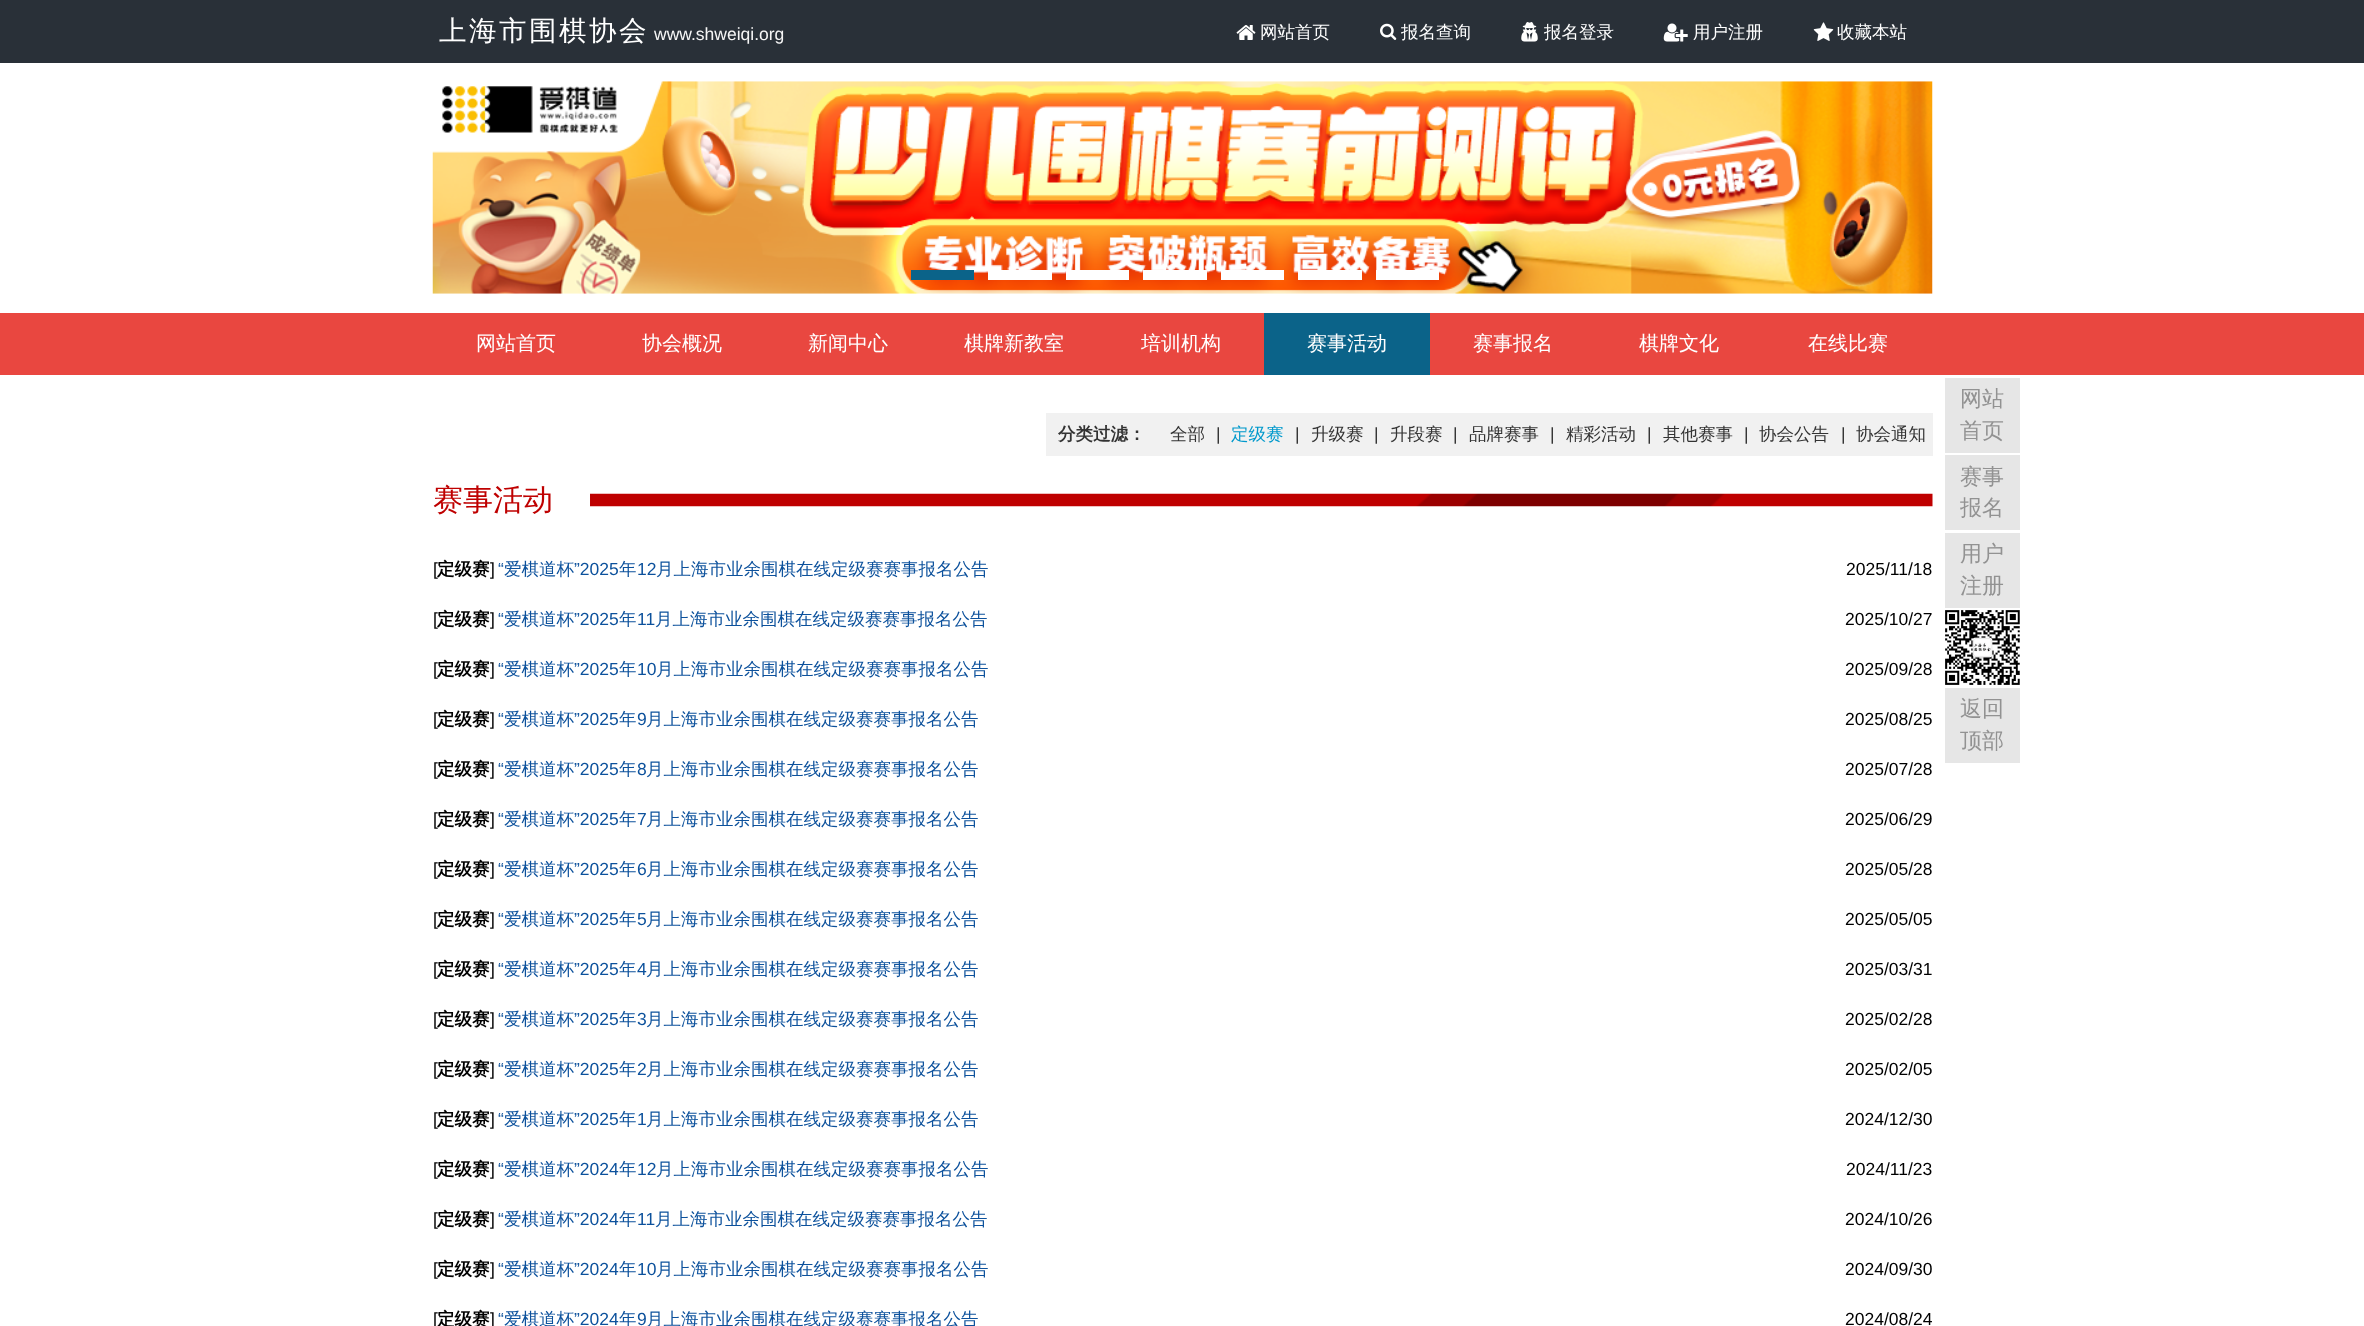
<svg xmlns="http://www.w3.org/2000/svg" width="2364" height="1326">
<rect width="100%" height="100%" fill="#fff"/>
<rect width="2364" height="63" fill="#293038"/>
<text x="439" y="40" style="font-family:WenQuanYi Zen Hei;font-size:27.5px;font-weight:500;letter-spacing:2.5px;fill:#fff">上海市围棋协会</text>
<text x="654" y="40" style="font-family:Liberation Sans;font-size:17.5px;fill:#f6f6f6">www.shweiqi.org</text>
<image x="1236" y="25" width="20" height="15" href="media/1.png"/>
<text x="1260" y="38" style="font-family:WenQuanYi Zen Hei;font-size:17.5px;font-weight:500;fill:#fff">网站首页</text>
<image x="1380" y="23" width="17" height="17" href="media/2.png"/>
<text x="1401" y="38" style="font-family:WenQuanYi Zen Hei;font-size:17.5px;font-weight:500;fill:#fff">报名查询</text>
<image x="1521" y="22" width="17" height="20" href="media/3.png"/>
<text x="1544" y="38" style="font-family:WenQuanYi Zen Hei;font-size:17.5px;font-weight:500;fill:#fff">报名登录</text>
<image x="1663" y="23" width="25" height="19" href="media/4.png"/>
<text x="1693" y="38" style="font-family:WenQuanYi Zen Hei;font-size:17.5px;font-weight:500;fill:#fff">用户注册</text>
<image x="1813" y="22" width="21" height="19" href="media/5.png"/>
<text x="1837" y="38" style="font-family:WenQuanYi Zen Hei;font-size:17.5px;font-weight:500;fill:#fff">收藏本站</text>
<image x="432" y="81" width="1501" height="213" href="media/6.png"/>
<rect x="911" y="270" width="63" height="10" fill="#0b6389"/>
<rect x="988" y="270" width="64" height="10" fill="#fff"/>
<rect x="1066" y="270" width="63" height="10" fill="#fff"/>
<rect x="1143" y="270" width="64" height="10" fill="#fff"/>
<rect x="1221" y="270" width="63" height="10" fill="#fff"/>
<rect x="1298" y="270" width="64" height="10" fill="#fff"/>
<rect x="1376" y="270" width="63" height="10" fill="#fff"/>
<rect y="313" width="2364" height="62" fill="#e94740"/>
<text x="476" y="350" style="font-family:WenQuanYi Zen Hei;font-size:20px;font-weight:500;fill:#fff">网站首页</text>
<text x="642" y="350" style="font-family:WenQuanYi Zen Hei;font-size:20px;font-weight:500;fill:#fff">协会概况</text>
<text x="808" y="350" style="font-family:WenQuanYi Zen Hei;font-size:20px;font-weight:500;fill:#fff">新闻中心</text>
<text x="964" y="350" style="font-family:WenQuanYi Zen Hei;font-size:20px;font-weight:500;fill:#fff">棋牌新教室</text>
<text x="1141" y="350" style="font-family:WenQuanYi Zen Hei;font-size:20px;font-weight:500;fill:#fff">培训机构</text>
<rect x="1264" y="313" width="166" height="62" fill="#0b6389"/>
<text x="1307" y="350" style="font-family:WenQuanYi Zen Hei;font-size:20px;font-weight:500;fill:#fff">赛事活动</text>
<text x="1473" y="350" style="font-family:WenQuanYi Zen Hei;font-size:20px;font-weight:500;fill:#fff">赛事报名</text>
<text x="1639" y="350" style="font-family:WenQuanYi Zen Hei;font-size:20px;font-weight:500;fill:#fff">棋牌文化</text>
<text x="1808" y="350" style="font-family:WenQuanYi Zen Hei;font-size:20px;font-weight:500;fill:#fff">在线比赛</text>
<rect x="1046" y="413" width="887" height="43" fill="#f1f1f1"/>
<text x="1058" y="440" style="font-family:WenQuanYi Zen Hei;font-size:17.5px;font-weight:bold;fill:#333">分类过滤：</text>
<text x="1170" y="440" style="font-family:WenQuanYi Zen Hei;font-size:17.5px;font-weight:500;fill:#333">全部</text>
<text x="1216" y="440" style="font-family:Liberation Sans;font-size:17.5px;fill:#333">|</text>
<text x="1231" y="440" style="font-family:WenQuanYi Zen Hei;font-size:17.5px;font-weight:500;fill:#09c">定级赛</text>
<text x="1295" y="440" style="font-family:Liberation Sans;font-size:17.5px;fill:#333">|</text>
<text x="1311" y="440" style="font-family:WenQuanYi Zen Hei;font-size:17.5px;font-weight:500;fill:#333">升级赛</text>
<text x="1374" y="440" style="font-family:Liberation Sans;font-size:17.5px;fill:#333">|</text>
<text x="1390" y="440" style="font-family:WenQuanYi Zen Hei;font-size:17.5px;font-weight:500;fill:#333">升段赛</text>
<text x="1453" y="440" style="font-family:Liberation Sans;font-size:17.5px;fill:#333">|</text>
<text x="1469" y="440" style="font-family:WenQuanYi Zen Hei;font-size:17.5px;font-weight:500;fill:#333">品牌赛事</text>
<text x="1550" y="440" style="font-family:Liberation Sans;font-size:17.5px;fill:#333">|</text>
<text x="1566" y="440" style="font-family:WenQuanYi Zen Hei;font-size:17.5px;font-weight:500;fill:#333">精彩活动</text>
<text x="1647" y="440" style="font-family:Liberation Sans;font-size:17.5px;fill:#333">|</text>
<text x="1663" y="440" style="font-family:WenQuanYi Zen Hei;font-size:17.5px;font-weight:500;fill:#333">其他赛事</text>
<text x="1744" y="440" style="font-family:Liberation Sans;font-size:17.5px;fill:#333">|</text>
<text x="1759" y="440" style="font-family:WenQuanYi Zen Hei;font-size:17.5px;font-weight:500;fill:#333">协会公告</text>
<text x="1841" y="440" style="font-family:Liberation Sans;font-size:17.5px;fill:#333">|</text>
<text x="1856" y="440" style="font-family:WenQuanYi Zen Hei;font-size:17.5px;font-weight:500;fill:#333">协会通知</text>
<image x="590" y="493" width="1343" height="14" href="media/7.png"/>
<text x="433" y="510" style="font-family:WenQuanYi Zen Hei;font-size:30px;font-weight:500;fill:#bf0000">赛事活动</text>
<text x="433" y="575" style="font-family:Liberation Sans;font-size:17.5px;fill:#000">[</text>
<text x="437" y="575" style="font-family:WenQuanYi Zen Hei;font-size:17.5px;font-weight:bold;fill:#000">定级赛</text>
<text x="490" y="575" style="font-family:Liberation Sans;font-size:17.5px;fill:#000">]</text>
<text x="498" y="575" style="font-family:Liberation Sans;font-size:17.5px;fill:#0c519c">“</text>
<text x="504" y="575" style="font-family:WenQuanYi Zen Hei;font-size:17.5px;font-weight:500;fill:#0c519c">爱棋道杯</text>
<text x="574" y="575" style="font-family:Liberation Sans;font-size:17.5px;fill:#0c519c">”2025</text>
<text x="619" y="575" style="font-family:WenQuanYi Zen Hei;font-size:17.5px;font-weight:500;fill:#0c519c">年</text>
<text x="637" y="575" style="font-family:Liberation Sans;font-size:17.5px;fill:#0c519c">12</text>
<text x="656" y="575" style="font-family:WenQuanYi Zen Hei;font-size:17.5px;font-weight:500;fill:#0c519c">月上海市业余围棋在线定级赛赛事报名公告</text>
<text x="1846" y="575" style="font-family:Liberation Sans;font-size:17.5px;fill:#000">2025/11/18</text>
<text x="433" y="625" style="font-family:Liberation Sans;font-size:17.5px;fill:#000">[</text>
<text x="437" y="625" style="font-family:WenQuanYi Zen Hei;font-size:17.5px;font-weight:bold;fill:#000">定级赛</text>
<text x="490" y="625" style="font-family:Liberation Sans;font-size:17.5px;fill:#000">]</text>
<text x="498" y="625" style="font-family:Liberation Sans;font-size:17.5px;fill:#0c519c">“</text>
<text x="504" y="625" style="font-family:WenQuanYi Zen Hei;font-size:17.5px;font-weight:500;fill:#0c519c">爱棋道杯</text>
<text x="574" y="625" style="font-family:Liberation Sans;font-size:17.5px;fill:#0c519c">”2025</text>
<text x="619" y="625" style="font-family:WenQuanYi Zen Hei;font-size:17.5px;font-weight:500;fill:#0c519c">年</text>
<text x="637" y="625" style="font-family:Liberation Sans;font-size:17.5px;fill:#0c519c">11</text>
<text x="655" y="625" style="font-family:WenQuanYi Zen Hei;font-size:17.5px;font-weight:500;fill:#0c519c">月上海市业余围棋在线定级赛赛事报名公告</text>
<text x="1845" y="625" style="font-family:Liberation Sans;font-size:17.5px;fill:#000">2025/10/27</text>
<text x="433" y="675" style="font-family:Liberation Sans;font-size:17.5px;fill:#000">[</text>
<text x="437" y="675" style="font-family:WenQuanYi Zen Hei;font-size:17.5px;font-weight:bold;fill:#000">定级赛</text>
<text x="490" y="675" style="font-family:Liberation Sans;font-size:17.5px;fill:#000">]</text>
<text x="498" y="675" style="font-family:Liberation Sans;font-size:17.5px;fill:#0c519c">“</text>
<text x="504" y="675" style="font-family:WenQuanYi Zen Hei;font-size:17.5px;font-weight:500;fill:#0c519c">爱棋道杯</text>
<text x="574" y="675" style="font-family:Liberation Sans;font-size:17.5px;fill:#0c519c">”2025</text>
<text x="619" y="675" style="font-family:WenQuanYi Zen Hei;font-size:17.5px;font-weight:500;fill:#0c519c">年</text>
<text x="637" y="675" style="font-family:Liberation Sans;font-size:17.5px;fill:#0c519c">10</text>
<text x="656" y="675" style="font-family:WenQuanYi Zen Hei;font-size:17.5px;font-weight:500;fill:#0c519c">月上海市业余围棋在线定级赛赛事报名公告</text>
<text x="1845" y="675" style="font-family:Liberation Sans;font-size:17.5px;fill:#000">2025/09/28</text>
<text x="433" y="725" style="font-family:Liberation Sans;font-size:17.5px;fill:#000">[</text>
<text x="437" y="725" style="font-family:WenQuanYi Zen Hei;font-size:17.5px;font-weight:bold;fill:#000">定级赛</text>
<text x="490" y="725" style="font-family:Liberation Sans;font-size:17.5px;fill:#000">]</text>
<text x="498" y="725" style="font-family:Liberation Sans;font-size:17.5px;fill:#0c519c">“</text>
<text x="504" y="725" style="font-family:WenQuanYi Zen Hei;font-size:17.5px;font-weight:500;fill:#0c519c">爱棋道杯</text>
<text x="574" y="725" style="font-family:Liberation Sans;font-size:17.5px;fill:#0c519c">”2025</text>
<text x="619" y="725" style="font-family:WenQuanYi Zen Hei;font-size:17.5px;font-weight:500;fill:#0c519c">年</text>
<text x="637" y="725" style="font-family:Liberation Sans;font-size:17.5px;fill:#0c519c">9</text>
<text x="646" y="725" style="font-family:WenQuanYi Zen Hei;font-size:17.5px;font-weight:500;fill:#0c519c">月上海市业余围棋在线定级赛赛事报名公告</text>
<text x="1845" y="725" style="font-family:Liberation Sans;font-size:17.5px;fill:#000">2025/08/25</text>
<text x="433" y="775" style="font-family:Liberation Sans;font-size:17.5px;fill:#000">[</text>
<text x="437" y="775" style="font-family:WenQuanYi Zen Hei;font-size:17.5px;font-weight:bold;fill:#000">定级赛</text>
<text x="490" y="775" style="font-family:Liberation Sans;font-size:17.5px;fill:#000">]</text>
<text x="498" y="775" style="font-family:Liberation Sans;font-size:17.5px;fill:#0c519c">“</text>
<text x="504" y="775" style="font-family:WenQuanYi Zen Hei;font-size:17.5px;font-weight:500;fill:#0c519c">爱棋道杯</text>
<text x="574" y="775" style="font-family:Liberation Sans;font-size:17.5px;fill:#0c519c">”2025</text>
<text x="619" y="775" style="font-family:WenQuanYi Zen Hei;font-size:17.5px;font-weight:500;fill:#0c519c">年</text>
<text x="637" y="775" style="font-family:Liberation Sans;font-size:17.5px;fill:#0c519c">8</text>
<text x="646" y="775" style="font-family:WenQuanYi Zen Hei;font-size:17.5px;font-weight:500;fill:#0c519c">月上海市业余围棋在线定级赛赛事报名公告</text>
<text x="1845" y="775" style="font-family:Liberation Sans;font-size:17.5px;fill:#000">2025/07/28</text>
<text x="433" y="825" style="font-family:Liberation Sans;font-size:17.5px;fill:#000">[</text>
<text x="437" y="825" style="font-family:WenQuanYi Zen Hei;font-size:17.5px;font-weight:bold;fill:#000">定级赛</text>
<text x="490" y="825" style="font-family:Liberation Sans;font-size:17.5px;fill:#000">]</text>
<text x="498" y="825" style="font-family:Liberation Sans;font-size:17.5px;fill:#0c519c">“</text>
<text x="504" y="825" style="font-family:WenQuanYi Zen Hei;font-size:17.5px;font-weight:500;fill:#0c519c">爱棋道杯</text>
<text x="574" y="825" style="font-family:Liberation Sans;font-size:17.5px;fill:#0c519c">”2025</text>
<text x="619" y="825" style="font-family:WenQuanYi Zen Hei;font-size:17.5px;font-weight:500;fill:#0c519c">年</text>
<text x="637" y="825" style="font-family:Liberation Sans;font-size:17.5px;fill:#0c519c">7</text>
<text x="646" y="825" style="font-family:WenQuanYi Zen Hei;font-size:17.5px;font-weight:500;fill:#0c519c">月上海市业余围棋在线定级赛赛事报名公告</text>
<text x="1845" y="825" style="font-family:Liberation Sans;font-size:17.5px;fill:#000">2025/06/29</text>
<text x="433" y="875" style="font-family:Liberation Sans;font-size:17.5px;fill:#000">[</text>
<text x="437" y="875" style="font-family:WenQuanYi Zen Hei;font-size:17.5px;font-weight:bold;fill:#000">定级赛</text>
<text x="490" y="875" style="font-family:Liberation Sans;font-size:17.5px;fill:#000">]</text>
<text x="498" y="875" style="font-family:Liberation Sans;font-size:17.5px;fill:#0c519c">“</text>
<text x="504" y="875" style="font-family:WenQuanYi Zen Hei;font-size:17.5px;font-weight:500;fill:#0c519c">爱棋道杯</text>
<text x="574" y="875" style="font-family:Liberation Sans;font-size:17.5px;fill:#0c519c">”2025</text>
<text x="619" y="875" style="font-family:WenQuanYi Zen Hei;font-size:17.5px;font-weight:500;fill:#0c519c">年</text>
<text x="637" y="875" style="font-family:Liberation Sans;font-size:17.5px;fill:#0c519c">6</text>
<text x="646" y="875" style="font-family:WenQuanYi Zen Hei;font-size:17.5px;font-weight:500;fill:#0c519c">月上海市业余围棋在线定级赛赛事报名公告</text>
<text x="1845" y="875" style="font-family:Liberation Sans;font-size:17.5px;fill:#000">2025/05/28</text>
<text x="433" y="925" style="font-family:Liberation Sans;font-size:17.5px;fill:#000">[</text>
<text x="437" y="925" style="font-family:WenQuanYi Zen Hei;font-size:17.5px;font-weight:bold;fill:#000">定级赛</text>
<text x="490" y="925" style="font-family:Liberation Sans;font-size:17.5px;fill:#000">]</text>
<text x="498" y="925" style="font-family:Liberation Sans;font-size:17.5px;fill:#0c519c">“</text>
<text x="504" y="925" style="font-family:WenQuanYi Zen Hei;font-size:17.5px;font-weight:500;fill:#0c519c">爱棋道杯</text>
<text x="574" y="925" style="font-family:Liberation Sans;font-size:17.5px;fill:#0c519c">”2025</text>
<text x="619" y="925" style="font-family:WenQuanYi Zen Hei;font-size:17.5px;font-weight:500;fill:#0c519c">年</text>
<text x="637" y="925" style="font-family:Liberation Sans;font-size:17.5px;fill:#0c519c">5</text>
<text x="646" y="925" style="font-family:WenQuanYi Zen Hei;font-size:17.5px;font-weight:500;fill:#0c519c">月上海市业余围棋在线定级赛赛事报名公告</text>
<text x="1845" y="925" style="font-family:Liberation Sans;font-size:17.5px;fill:#000">2025/05/05</text>
<text x="433" y="975" style="font-family:Liberation Sans;font-size:17.5px;fill:#000">[</text>
<text x="437" y="975" style="font-family:WenQuanYi Zen Hei;font-size:17.5px;font-weight:bold;fill:#000">定级赛</text>
<text x="490" y="975" style="font-family:Liberation Sans;font-size:17.5px;fill:#000">]</text>
<text x="498" y="975" style="font-family:Liberation Sans;font-size:17.5px;fill:#0c519c">“</text>
<text x="504" y="975" style="font-family:WenQuanYi Zen Hei;font-size:17.5px;font-weight:500;fill:#0c519c">爱棋道杯</text>
<text x="574" y="975" style="font-family:Liberation Sans;font-size:17.5px;fill:#0c519c">”2025</text>
<text x="619" y="975" style="font-family:WenQuanYi Zen Hei;font-size:17.5px;font-weight:500;fill:#0c519c">年</text>
<text x="637" y="975" style="font-family:Liberation Sans;font-size:17.5px;fill:#0c519c">4</text>
<text x="646" y="975" style="font-family:WenQuanYi Zen Hei;font-size:17.5px;font-weight:500;fill:#0c519c">月上海市业余围棋在线定级赛赛事报名公告</text>
<text x="1845" y="975" style="font-family:Liberation Sans;font-size:17.5px;fill:#000">2025/03/31</text>
<text x="433" y="1025" style="font-family:Liberation Sans;font-size:17.5px;fill:#000">[</text>
<text x="437" y="1025" style="font-family:WenQuanYi Zen Hei;font-size:17.5px;font-weight:bold;fill:#000">定级赛</text>
<text x="490" y="1025" style="font-family:Liberation Sans;font-size:17.5px;fill:#000">]</text>
<text x="498" y="1025" style="font-family:Liberation Sans;font-size:17.5px;fill:#0c519c">“</text>
<text x="504" y="1025" style="font-family:WenQuanYi Zen Hei;font-size:17.5px;font-weight:500;fill:#0c519c">爱棋道杯</text>
<text x="574" y="1025" style="font-family:Liberation Sans;font-size:17.5px;fill:#0c519c">”2025</text>
<text x="619" y="1025" style="font-family:WenQuanYi Zen Hei;font-size:17.5px;font-weight:500;fill:#0c519c">年</text>
<text x="637" y="1025" style="font-family:Liberation Sans;font-size:17.5px;fill:#0c519c">3</text>
<text x="646" y="1025" style="font-family:WenQuanYi Zen Hei;font-size:17.5px;font-weight:500;fill:#0c519c">月上海市业余围棋在线定级赛赛事报名公告</text>
<text x="1845" y="1025" style="font-family:Liberation Sans;font-size:17.5px;fill:#000">2025/02/28</text>
<text x="433" y="1075" style="font-family:Liberation Sans;font-size:17.5px;fill:#000">[</text>
<text x="437" y="1075" style="font-family:WenQuanYi Zen Hei;font-size:17.5px;font-weight:bold;fill:#000">定级赛</text>
<text x="490" y="1075" style="font-family:Liberation Sans;font-size:17.5px;fill:#000">]</text>
<text x="498" y="1075" style="font-family:Liberation Sans;font-size:17.5px;fill:#0c519c">“</text>
<text x="504" y="1075" style="font-family:WenQuanYi Zen Hei;font-size:17.5px;font-weight:500;fill:#0c519c">爱棋道杯</text>
<text x="574" y="1075" style="font-family:Liberation Sans;font-size:17.5px;fill:#0c519c">”2025</text>
<text x="619" y="1075" style="font-family:WenQuanYi Zen Hei;font-size:17.5px;font-weight:500;fill:#0c519c">年</text>
<text x="637" y="1075" style="font-family:Liberation Sans;font-size:17.5px;fill:#0c519c">2</text>
<text x="646" y="1075" style="font-family:WenQuanYi Zen Hei;font-size:17.5px;font-weight:500;fill:#0c519c">月上海市业余围棋在线定级赛赛事报名公告</text>
<text x="1845" y="1075" style="font-family:Liberation Sans;font-size:17.5px;fill:#000">2025/02/05</text>
<text x="433" y="1125" style="font-family:Liberation Sans;font-size:17.5px;fill:#000">[</text>
<text x="437" y="1125" style="font-family:WenQuanYi Zen Hei;font-size:17.5px;font-weight:bold;fill:#000">定级赛</text>
<text x="490" y="1125" style="font-family:Liberation Sans;font-size:17.5px;fill:#000">]</text>
<text x="498" y="1125" style="font-family:Liberation Sans;font-size:17.5px;fill:#0c519c">“</text>
<text x="504" y="1125" style="font-family:WenQuanYi Zen Hei;font-size:17.5px;font-weight:500;fill:#0c519c">爱棋道杯</text>
<text x="574" y="1125" style="font-family:Liberation Sans;font-size:17.5px;fill:#0c519c">”2025</text>
<text x="619" y="1125" style="font-family:WenQuanYi Zen Hei;font-size:17.5px;font-weight:500;fill:#0c519c">年</text>
<text x="637" y="1125" style="font-family:Liberation Sans;font-size:17.5px;fill:#0c519c">1</text>
<text x="646" y="1125" style="font-family:WenQuanYi Zen Hei;font-size:17.5px;font-weight:500;fill:#0c519c">月上海市业余围棋在线定级赛赛事报名公告</text>
<text x="1845" y="1125" style="font-family:Liberation Sans;font-size:17.5px;fill:#000">2024/12/30</text>
<text x="433" y="1175" style="font-family:Liberation Sans;font-size:17.5px;fill:#000">[</text>
<text x="437" y="1175" style="font-family:WenQuanYi Zen Hei;font-size:17.5px;font-weight:bold;fill:#000">定级赛</text>
<text x="490" y="1175" style="font-family:Liberation Sans;font-size:17.5px;fill:#000">]</text>
<text x="498" y="1175" style="font-family:Liberation Sans;font-size:17.5px;fill:#0c519c">“</text>
<text x="504" y="1175" style="font-family:WenQuanYi Zen Hei;font-size:17.5px;font-weight:500;fill:#0c519c">爱棋道杯</text>
<text x="574" y="1175" style="font-family:Liberation Sans;font-size:17.5px;fill:#0c519c">”2024</text>
<text x="619" y="1175" style="font-family:WenQuanYi Zen Hei;font-size:17.5px;font-weight:500;fill:#0c519c">年</text>
<text x="637" y="1175" style="font-family:Liberation Sans;font-size:17.5px;fill:#0c519c">12</text>
<text x="656" y="1175" style="font-family:WenQuanYi Zen Hei;font-size:17.5px;font-weight:500;fill:#0c519c">月上海市业余围棋在线定级赛赛事报名公告</text>
<text x="1846" y="1175" style="font-family:Liberation Sans;font-size:17.5px;fill:#000">2024/11/23</text>
<text x="433" y="1225" style="font-family:Liberation Sans;font-size:17.5px;fill:#000">[</text>
<text x="437" y="1225" style="font-family:WenQuanYi Zen Hei;font-size:17.5px;font-weight:bold;fill:#000">定级赛</text>
<text x="490" y="1225" style="font-family:Liberation Sans;font-size:17.5px;fill:#000">]</text>
<text x="498" y="1225" style="font-family:Liberation Sans;font-size:17.5px;fill:#0c519c">“</text>
<text x="504" y="1225" style="font-family:WenQuanYi Zen Hei;font-size:17.5px;font-weight:500;fill:#0c519c">爱棋道杯</text>
<text x="574" y="1225" style="font-family:Liberation Sans;font-size:17.5px;fill:#0c519c">”2024</text>
<text x="619" y="1225" style="font-family:WenQuanYi Zen Hei;font-size:17.5px;font-weight:500;fill:#0c519c">年</text>
<text x="637" y="1225" style="font-family:Liberation Sans;font-size:17.5px;fill:#0c519c">11</text>
<text x="655" y="1225" style="font-family:WenQuanYi Zen Hei;font-size:17.5px;font-weight:500;fill:#0c519c">月上海市业余围棋在线定级赛赛事报名公告</text>
<text x="1845" y="1225" style="font-family:Liberation Sans;font-size:17.5px;fill:#000">2024/10/26</text>
<text x="433" y="1275" style="font-family:Liberation Sans;font-size:17.5px;fill:#000">[</text>
<text x="437" y="1275" style="font-family:WenQuanYi Zen Hei;font-size:17.5px;font-weight:bold;fill:#000">定级赛</text>
<text x="490" y="1275" style="font-family:Liberation Sans;font-size:17.5px;fill:#000">]</text>
<text x="498" y="1275" style="font-family:Liberation Sans;font-size:17.5px;fill:#0c519c">“</text>
<text x="504" y="1275" style="font-family:WenQuanYi Zen Hei;font-size:17.5px;font-weight:500;fill:#0c519c">爱棋道杯</text>
<text x="574" y="1275" style="font-family:Liberation Sans;font-size:17.5px;fill:#0c519c">”2024</text>
<text x="619" y="1275" style="font-family:WenQuanYi Zen Hei;font-size:17.5px;font-weight:500;fill:#0c519c">年</text>
<text x="637" y="1275" style="font-family:Liberation Sans;font-size:17.5px;fill:#0c519c">10</text>
<text x="656" y="1275" style="font-family:WenQuanYi Zen Hei;font-size:17.5px;font-weight:500;fill:#0c519c">月上海市业余围棋在线定级赛赛事报名公告</text>
<text x="1845" y="1275" style="font-family:Liberation Sans;font-size:17.5px;fill:#000">2024/09/30</text>
<text x="433" y="1325" style="font-family:Liberation Sans;font-size:17.5px;fill:#000">[</text>
<text x="437" y="1325" style="font-family:WenQuanYi Zen Hei;font-size:17.5px;font-weight:bold;fill:#000">定级赛</text>
<text x="490" y="1325" style="font-family:Liberation Sans;font-size:17.5px;fill:#000">]</text>
<text x="498" y="1325" style="font-family:Liberation Sans;font-size:17.5px;fill:#0c519c">“</text>
<text x="504" y="1325" style="font-family:WenQuanYi Zen Hei;font-size:17.5px;font-weight:500;fill:#0c519c">爱棋道杯</text>
<text x="574" y="1325" style="font-family:Liberation Sans;font-size:17.5px;fill:#0c519c">”2024</text>
<text x="619" y="1325" style="font-family:WenQuanYi Zen Hei;font-size:17.5px;font-weight:500;fill:#0c519c">年</text>
<text x="637" y="1325" style="font-family:Liberation Sans;font-size:17.5px;fill:#0c519c">9</text>
<text x="646" y="1325" style="font-family:WenQuanYi Zen Hei;font-size:17.5px;font-weight:500;fill:#0c519c">月上海市业余围棋在线定级赛赛事报名公告</text>
<text x="1845" y="1325" style="font-family:Liberation Sans;font-size:17.5px;fill:#000">2024/08/24</text>
<rect x="1945" y="378" width="75" height="75" fill="#e6e6e6"/>
<text x="1960" y="406" style="font-family:WenQuanYi Zen Hei;font-size:22px;font-weight:500;fill:#929292">网站</text>
<text x="1960" y="438" style="font-family:WenQuanYi Zen Hei;font-size:22px;font-weight:500;fill:#929292">首页</text>
<rect x="1945" y="455" width="75" height="75" fill="#e6e6e6"/>
<text x="1960" y="484" style="font-family:WenQuanYi Zen Hei;font-size:22px;font-weight:500;fill:#929292">赛事</text>
<text x="1960" y="515" style="font-family:WenQuanYi Zen Hei;font-size:22px;font-weight:500;fill:#929292">报名</text>
<rect x="1945" y="533" width="75" height="75" fill="#e6e6e6"/>
<text x="1960" y="561" style="font-family:WenQuanYi Zen Hei;font-size:22px;font-weight:500;fill:#929292">用户</text>
<text x="1960" y="593" style="font-family:WenQuanYi Zen Hei;font-size:22px;font-weight:500;fill:#929292">注册</text>
<image x="1945" y="610" width="75" height="75" href="media/8.png"/>
<rect x="1945" y="688" width="75" height="75" fill="#e6e6e6"/>
<text x="1960" y="716" style="font-family:WenQuanYi Zen Hei;font-size:22px;font-weight:500;fill:#929292">返回</text>
<text x="1960" y="748" style="font-family:WenQuanYi Zen Hei;font-size:22px;font-weight:500;fill:#929292">顶部</text>
</svg>
